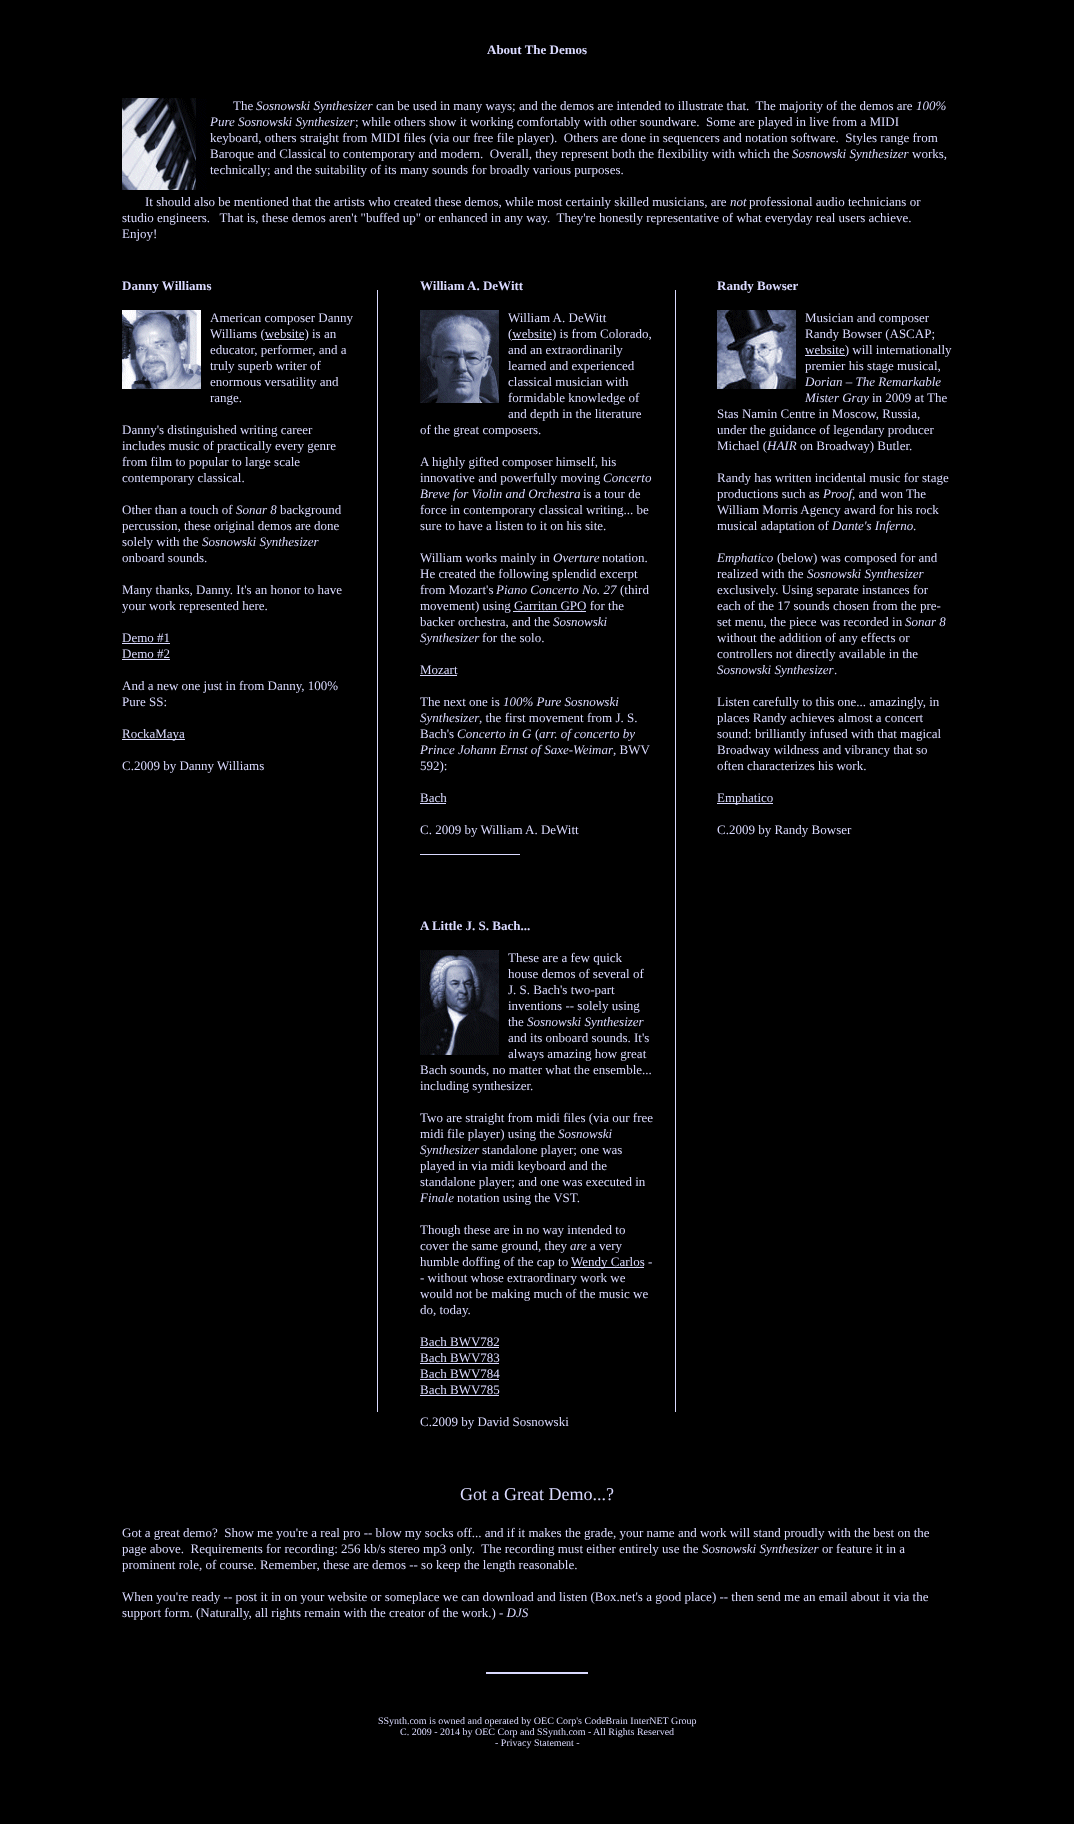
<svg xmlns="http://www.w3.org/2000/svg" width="1074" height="1824">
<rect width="100%" height="100%" fill="#000"/>
<text x="487" y="54" style="font-family:Liberation Serif;font-size:13px;font-weight:bold;fill:#dadaff">About The Demos</text>
<image x="122" y="98" width="85" height="92" href="media/1.png"/>
<text x="233" y="110" style="font-family:Liberation Serif;font-size:13px;fill:#dadaff">The</text>
<text x="256" y="110" style="font-family:Liberation Serif;font-size:13px;font-style:italic;fill:#dadaff">Sosnowski Synthesizer</text>
<text x="376" y="110" style="font-family:Liberation Serif;font-size:13px;fill:#dadaff" xml:space="preserve">can be used in many ways; and the demos are intended to illustrate that.  The majority of the demos are</text>
<text x="916" y="110" style="font-family:Liberation Serif;font-size:13px;font-style:italic;fill:#dadaff">100%</text>
<text x="210" y="126" style="font-family:Liberation Serif;font-size:13px;font-style:italic;fill:#dadaff">Pure Sosnowski Synthesizer</text>
<text x="355" y="126" style="font-family:Liberation Serif;font-size:13px;fill:#dadaff" xml:space="preserve">; while others show it working comfortably with other soundware.  Some are played in live from a MIDI</text>
<text x="210" y="142" style="font-family:Liberation Serif;font-size:13px;fill:#dadaff" xml:space="preserve">keyboard, others straight from MIDI files (via our free file player).  Others are done in sequencers and notation software.  Styles range from</text>
<text x="210" y="158" style="font-family:Liberation Serif;font-size:13px;fill:#dadaff" xml:space="preserve">Baroque and Classical to contemporary and modern.  Overall, they represent both the flexibility with which the</text>
<text x="792" y="158" style="font-family:Liberation Serif;font-size:13px;font-style:italic;fill:#dadaff">Sosnowski Synthesizer</text>
<text x="912" y="158" style="font-family:Liberation Serif;font-size:13px;fill:#dadaff">works,</text>
<text x="210" y="174" style="font-family:Liberation Serif;font-size:13px;fill:#dadaff">technically; and the suitability of its many sounds for broadly various purposes.</text>
<text x="145" y="206" style="font-family:Liberation Serif;font-size:13px;fill:#dadaff">It should also be mentioned that the artists who created these demos, while most certainly skilled musicians, are</text>
<text x="730" y="206" style="font-family:Liberation Serif;font-size:13px;font-style:italic;fill:#dadaff">not</text>
<text x="749" y="206" style="font-family:Liberation Serif;font-size:13px;fill:#dadaff">professional audio technicians or</text>
<text x="122" y="222" style="font-family:Liberation Serif;font-size:13px;fill:#dadaff" xml:space="preserve">studio engineers.   That is, these demos aren't "buffed up" or enhanced in any way.  They're honestly representative of what everyday real users achieve.</text>
<text x="122" y="238" style="font-family:Liberation Serif;font-size:13px;fill:#dadaff">Enjoy!</text>
<text x="122" y="290" style="font-family:Liberation Serif;font-size:13px;font-weight:bold;fill:#dadaff">Danny Williams</text>
<image x="122" y="310" width="79" height="79" href="media/2.png"/>
<text x="210" y="322" style="font-family:Liberation Serif;font-size:13px;fill:#dadaff">American composer Danny</text>
<text x="210" y="338" style="font-family:Liberation Serif;font-size:13px;fill:#dadaff">Williams (website) is an</text>
<rect x="265" y="339" width="39" height="1" fill="#dadaff"/>
<text x="210" y="354" style="font-family:Liberation Serif;font-size:13px;fill:#dadaff">educator, performer, and a</text>
<text x="210" y="370" style="font-family:Liberation Serif;font-size:13px;fill:#dadaff">truly superb writer of</text>
<text x="210" y="386" style="font-family:Liberation Serif;font-size:13px;fill:#dadaff">enormous versatility and</text>
<text x="210" y="402" style="font-family:Liberation Serif;font-size:13px;fill:#dadaff">range.</text>
<text x="122" y="434" style="font-family:Liberation Serif;font-size:13px;fill:#dadaff">Danny's distinguished writing career</text>
<text x="122" y="450" style="font-family:Liberation Serif;font-size:13px;fill:#dadaff">includes music of practically every genre</text>
<text x="122" y="466" style="font-family:Liberation Serif;font-size:13px;fill:#dadaff">from film to popular to large scale</text>
<text x="122" y="482" style="font-family:Liberation Serif;font-size:13px;fill:#dadaff">contemporary classical.</text>
<text x="122" y="514" style="font-family:Liberation Serif;font-size:13px;fill:#dadaff">Other than a touch of</text>
<text x="236" y="514" style="font-family:Liberation Serif;font-size:13px;font-style:italic;fill:#dadaff">Sonar 8</text>
<text x="280" y="514" style="font-family:Liberation Serif;font-size:13px;fill:#dadaff">background</text>
<text x="122" y="530" style="font-family:Liberation Serif;font-size:13px;fill:#dadaff">percussion, these original demos are done</text>
<text x="122" y="546" style="font-family:Liberation Serif;font-size:13px;fill:#dadaff">solely with the</text>
<text x="202" y="546" style="font-family:Liberation Serif;font-size:13px;font-style:italic;fill:#dadaff">Sosnowski Synthesizer</text>
<text x="122" y="562" style="font-family:Liberation Serif;font-size:13px;fill:#dadaff">onboard sounds.</text>
<text x="122" y="594" style="font-family:Liberation Serif;font-size:13px;fill:#dadaff">Many thanks, Danny. It's an honor to have</text>
<text x="122" y="610" style="font-family:Liberation Serif;font-size:13px;fill:#dadaff">your work represented here.</text>
<text x="122" y="642" style="font-family:Liberation Serif;font-size:13px;fill:#dadaff">Demo #1</text>
<rect x="122" y="643" width="48" height="1" fill="#dadaff"/>
<text x="122" y="658" style="font-family:Liberation Serif;font-size:13px;fill:#dadaff">Demo #2</text>
<rect x="122" y="659" width="48" height="1" fill="#dadaff"/>
<text x="122" y="690" style="font-family:Liberation Serif;font-size:13px;fill:#dadaff">And a new one just in from Danny, 100%</text>
<text x="122" y="706" style="font-family:Liberation Serif;font-size:13px;fill:#dadaff">Pure SS:</text>
<rect x="122" y="739" width="63" height="1" fill="#dadaff"/>
<text x="122" y="738" style="font-family:Liberation Serif;font-size:13px;fill:#dadaff">RockaMaya</text>
<text x="122" y="770" style="font-family:Liberation Serif;font-size:13px;fill:#dadaff">C.2009 by Danny Williams</text>
<rect x="377" y="290" width="1" height="1122" fill="#dadaff"/>
<text x="420" y="290" style="font-family:Liberation Serif;font-size:13px;font-weight:bold;fill:#dadaff">William A. DeWitt</text>
<image x="420" y="310" width="79" height="93" href="media/3.png"/>
<text x="508" y="322" style="font-family:Liberation Serif;font-size:13px;fill:#dadaff">William A. DeWitt</text>
<text x="508" y="338" style="font-family:Liberation Serif;font-size:13px;fill:#dadaff">(website</text>
<rect x="512" y="339" width="40" height="1" fill="#dadaff"/>
<text x="552" y="338" style="font-family:Liberation Serif;font-size:13px;fill:#dadaff">) is from Colorado,</text>
<text x="508" y="354" style="font-family:Liberation Serif;font-size:13px;fill:#dadaff">and an extraordinarily</text>
<text x="508" y="370" style="font-family:Liberation Serif;font-size:13px;fill:#dadaff">learned and experienced</text>
<text x="508" y="386" style="font-family:Liberation Serif;font-size:13px;fill:#dadaff">classical musician with</text>
<text x="508" y="402" style="font-family:Liberation Serif;font-size:13px;fill:#dadaff">formidable knowledge of</text>
<text x="508" y="418" style="font-family:Liberation Serif;font-size:13px;fill:#dadaff">and depth in the literature</text>
<text x="420" y="434" style="font-family:Liberation Serif;font-size:13px;fill:#dadaff">of the great composers.</text>
<text x="420" y="466" style="font-family:Liberation Serif;font-size:13px;fill:#dadaff">A highly gifted composer himself, his</text>
<text x="420" y="482" style="font-family:Liberation Serif;font-size:13px;fill:#dadaff">innovative and powerfully moving</text>
<text x="603" y="482" style="font-family:Liberation Serif;font-size:13px;font-style:italic;fill:#dadaff">Concerto</text>
<text x="420" y="498" style="font-family:Liberation Serif;font-size:13px;font-style:italic;fill:#dadaff">Breve for Violin and Orchestra</text>
<text x="583" y="498" style="font-family:Liberation Serif;font-size:13px;fill:#dadaff">is a tour de</text>
<text x="420" y="514" style="font-family:Liberation Serif;font-size:13px;fill:#dadaff">force in contemporary classical writing... be</text>
<text x="420" y="530" style="font-family:Liberation Serif;font-size:13px;fill:#dadaff">sure to have a listen to it on his site.</text>
<text x="420" y="562" style="font-family:Liberation Serif;font-size:13px;fill:#dadaff">William works mainly in</text>
<text x="553" y="562" style="font-family:Liberation Serif;font-size:13px;font-style:italic;fill:#dadaff">Overture</text>
<text x="602" y="562" style="font-family:Liberation Serif;font-size:13px;fill:#dadaff">notation.</text>
<text x="420" y="578" style="font-family:Liberation Serif;font-size:13px;fill:#dadaff">He created the following splendid excerpt</text>
<text x="420" y="594" style="font-family:Liberation Serif;font-size:13px;fill:#dadaff">from Mozart's</text>
<text x="496" y="594" style="font-family:Liberation Serif;font-size:13px;font-style:italic;fill:#dadaff">Piano Concerto No. 27</text>
<text x="620" y="594" style="font-family:Liberation Serif;font-size:13px;fill:#dadaff">(third</text>
<text x="420" y="610" style="font-family:Liberation Serif;font-size:13px;fill:#dadaff">movement) using Garritan GPO for the</text>
<rect x="513" y="611" width="73" height="1" fill="#dadaff"/>
<text x="420" y="626" style="font-family:Liberation Serif;font-size:13px;fill:#dadaff">backer orchestra, and the</text>
<text x="553" y="626" style="font-family:Liberation Serif;font-size:13px;font-style:italic;fill:#dadaff">Sosnowski</text>
<text x="420" y="642" style="font-family:Liberation Serif;font-size:13px;font-style:italic;fill:#dadaff">Synthesizer</text>
<text x="482" y="642" style="font-family:Liberation Serif;font-size:13px;fill:#dadaff">for the solo.</text>
<text x="420" y="674" style="font-family:Liberation Serif;font-size:13px;fill:#dadaff">Mozart</text>
<rect x="420" y="675" width="37" height="1" fill="#dadaff"/>
<text x="420" y="706" style="font-family:Liberation Serif;font-size:13px;fill:#dadaff">The next one is</text>
<text x="503" y="706" style="font-family:Liberation Serif;font-size:13px;font-style:italic;fill:#dadaff">100% Pure Sosnowski</text>
<text x="420" y="722" style="font-family:Liberation Serif;font-size:13px;font-style:italic;fill:#dadaff">Synthesizer</text>
<text x="479" y="722" style="font-family:Liberation Serif;font-size:13px;fill:#dadaff">, the first movement from J. S.</text>
<text x="420" y="738" style="font-family:Liberation Serif;font-size:13px;fill:#dadaff">Bach's</text>
<text x="457" y="738" style="font-family:Liberation Serif;font-size:13px;font-style:italic;fill:#dadaff">Concerto in G</text>
<text x="535" y="738" style="font-family:Liberation Serif;font-size:13px;fill:#dadaff">(</text>
<text x="539" y="738" style="font-family:Liberation Serif;font-size:13px;font-style:italic;fill:#dadaff">arr. of concerto by</text>
<text x="420" y="754" style="font-family:Liberation Serif;font-size:13px;font-style:italic;fill:#dadaff">Prince Johann Ernst of Saxe-Weimar</text>
<text x="613" y="754" style="font-family:Liberation Serif;font-size:13px;fill:#dadaff">, BWV</text>
<text x="420" y="770" style="font-family:Liberation Serif;font-size:13px;fill:#dadaff">592):</text>
<text x="420" y="802" style="font-family:Liberation Serif;font-size:13px;fill:#dadaff">Bach</text>
<rect x="420" y="803" width="26" height="1" fill="#dadaff"/>
<text x="420" y="834" style="font-family:Liberation Serif;font-size:13px;fill:#dadaff">C. 2009 by William A. DeWitt</text>
<rect x="420" y="854" width="100" height="1" fill="#dadaff"/>
<text x="420" y="930" style="font-family:Liberation Serif;font-size:13px;font-weight:bold;fill:#dadaff">A Little J. S. Bach...</text>
<image x="420" y="950" width="79" height="105" href="media/4.png"/>
<text x="508" y="962" style="font-family:Liberation Serif;font-size:13px;fill:#dadaff">These are a few quick</text>
<text x="508" y="978" style="font-family:Liberation Serif;font-size:13px;fill:#dadaff">house demos of several of</text>
<text x="508" y="994" style="font-family:Liberation Serif;font-size:13px;fill:#dadaff">J. S. Bach's two-part</text>
<text x="508" y="1010" style="font-family:Liberation Serif;font-size:13px;fill:#dadaff">inventions -- solely using</text>
<text x="508" y="1026" style="font-family:Liberation Serif;font-size:13px;fill:#dadaff">the</text>
<text x="527" y="1026" style="font-family:Liberation Serif;font-size:13px;font-style:italic;fill:#dadaff">Sosnowski Synthesizer</text>
<text x="508" y="1042" style="font-family:Liberation Serif;font-size:13px;fill:#dadaff">and its onboard sounds. It's</text>
<text x="508" y="1058" style="font-family:Liberation Serif;font-size:13px;fill:#dadaff">always amazing how great</text>
<text x="420" y="1074" style="font-family:Liberation Serif;font-size:13px;fill:#dadaff">Bach sounds, no matter what the ensemble...</text>
<text x="420" y="1090" style="font-family:Liberation Serif;font-size:13px;fill:#dadaff">including synthesizer.</text>
<text x="420" y="1122" style="font-family:Liberation Serif;font-size:13px;fill:#dadaff">Two are straight from midi files (via our free</text>
<text x="420" y="1138" style="font-family:Liberation Serif;font-size:13px;fill:#dadaff">midi file player) using the</text>
<text x="558" y="1138" style="font-family:Liberation Serif;font-size:13px;font-style:italic;fill:#dadaff">Sosnowski</text>
<text x="420" y="1154" style="font-family:Liberation Serif;font-size:13px;font-style:italic;fill:#dadaff">Synthesizer</text>
<text x="482" y="1154" style="font-family:Liberation Serif;font-size:13px;fill:#dadaff">standalone player; one was</text>
<text x="420" y="1170" style="font-family:Liberation Serif;font-size:13px;fill:#dadaff">played in via midi keyboard and the</text>
<text x="420" y="1186" style="font-family:Liberation Serif;font-size:13px;fill:#dadaff">standalone player; and one was executed in</text>
<text x="420" y="1202" style="font-family:Liberation Serif;font-size:13px;font-style:italic;fill:#dadaff">Finale</text>
<text x="457" y="1202" style="font-family:Liberation Serif;font-size:13px;fill:#dadaff">notation using the VST.</text>
<text x="420" y="1234" style="font-family:Liberation Serif;font-size:13px;fill:#dadaff">Though these are in no way intended to</text>
<text x="420" y="1250" style="font-family:Liberation Serif;font-size:13px;fill:#dadaff">cover the same ground, they</text>
<text x="570" y="1250" style="font-family:Liberation Serif;font-size:13px;font-style:italic;fill:#dadaff">are</text>
<text x="590" y="1250" style="font-family:Liberation Serif;font-size:13px;fill:#dadaff">a very</text>
<text x="420" y="1266" style="font-family:Liberation Serif;font-size:13px;fill:#dadaff">humble doffing of the cap to</text>
<rect x="571" y="1267" width="73" height="1" fill="#dadaff"/>
<text x="571" y="1266" style="font-family:Liberation Serif;font-size:13px;fill:#dadaff">Wendy Carlos -</text>
<text x="420" y="1282" style="font-family:Liberation Serif;font-size:13px;fill:#dadaff">- without whose extraordinary work we</text>
<text x="420" y="1298" style="font-family:Liberation Serif;font-size:13px;fill:#dadaff">would not be making much of the music we</text>
<text x="420" y="1314" style="font-family:Liberation Serif;font-size:13px;fill:#dadaff">do, today.</text>
<text x="420" y="1346" style="font-family:Liberation Serif;font-size:13px;fill:#dadaff">Bach BWV782</text>
<rect x="420" y="1347" width="79" height="1" fill="#dadaff"/>
<text x="420" y="1362" style="font-family:Liberation Serif;font-size:13px;fill:#dadaff">Bach BWV783</text>
<rect x="420" y="1363" width="79" height="1" fill="#dadaff"/>
<text x="420" y="1378" style="font-family:Liberation Serif;font-size:13px;fill:#dadaff">Bach BWV784</text>
<rect x="420" y="1379" width="79" height="1" fill="#dadaff"/>
<text x="420" y="1394" style="font-family:Liberation Serif;font-size:13px;fill:#dadaff">Bach BWV785</text>
<rect x="420" y="1395" width="79" height="1" fill="#dadaff"/>
<text x="420" y="1426" style="font-family:Liberation Serif;font-size:13px;fill:#dadaff">C.2009 by David Sosnowski</text>
<rect x="675" y="290" width="1" height="1122" fill="#dadaff"/>
<text x="717" y="290" style="font-family:Liberation Serif;font-size:13px;font-weight:bold;fill:#dadaff">Randy Bowser</text>
<image x="717" y="310" width="79" height="79" href="media/5.png"/>
<text x="805" y="322" style="font-family:Liberation Serif;font-size:13px;fill:#dadaff">Musician and composer</text>
<text x="805" y="338" style="font-family:Liberation Serif;font-size:13px;fill:#dadaff">Randy Bowser (ASCAP;</text>
<rect x="805" y="355" width="40" height="1" fill="#dadaff"/>
<text x="805" y="354" style="font-family:Liberation Serif;font-size:13px;fill:#dadaff">website) will internationally</text>
<text x="805" y="370" style="font-family:Liberation Serif;font-size:13px;fill:#dadaff">premier his stage musical,</text>
<text x="805" y="386" style="font-family:Liberation Serif;font-size:13px;font-style:italic;fill:#dadaff">Dorian – The Remarkable</text>
<text x="805" y="402" style="font-family:Liberation Serif;font-size:13px;font-style:italic;fill:#dadaff">Mister Gray</text>
<text x="872" y="402" style="font-family:Liberation Serif;font-size:13px;fill:#dadaff">in 2009 at The</text>
<text x="717" y="418" style="font-family:Liberation Serif;font-size:13px;fill:#dadaff">Stas Namin Centre in Moscow, Russia,</text>
<text x="717" y="434" style="font-family:Liberation Serif;font-size:13px;fill:#dadaff">under the guidance of legendary producer</text>
<text x="717" y="450" style="font-family:Liberation Serif;font-size:13px;fill:#dadaff">Michael (</text>
<text x="767" y="450" style="font-family:Liberation Serif;font-size:13px;font-style:italic;fill:#dadaff">HAIR</text>
<text x="800" y="450" style="font-family:Liberation Serif;font-size:13px;fill:#dadaff">on Broadway) Butler.</text>
<text x="717" y="482" style="font-family:Liberation Serif;font-size:13px;fill:#dadaff">Randy has written incidental music for stage</text>
<text x="717" y="498" style="font-family:Liberation Serif;font-size:13px;fill:#dadaff">productions such as</text>
<text x="823" y="498" style="font-family:Liberation Serif;font-size:13px;font-style:italic;fill:#dadaff">Proof</text>
<text x="852" y="498" style="font-family:Liberation Serif;font-size:13px;fill:#dadaff">, and won The</text>
<text x="717" y="514" style="font-family:Liberation Serif;font-size:13px;fill:#dadaff">William Morris Agency award for his rock</text>
<text x="717" y="530" style="font-family:Liberation Serif;font-size:13px;fill:#dadaff">musical adaptation of</text>
<text x="832" y="530" style="font-family:Liberation Serif;font-size:13px;font-style:italic;fill:#dadaff">Dante's Inferno</text>
<text x="913" y="530" style="font-family:Liberation Serif;font-size:13px;fill:#dadaff">.</text>
<text x="717" y="562" style="font-family:Liberation Serif;font-size:13px;font-style:italic;fill:#dadaff">Emphatico</text>
<text x="777" y="562" style="font-family:Liberation Serif;font-size:13px;fill:#dadaff">(below) was composed for and</text>
<text x="717" y="578" style="font-family:Liberation Serif;font-size:13px;fill:#dadaff">realized with the</text>
<text x="807" y="578" style="font-family:Liberation Serif;font-size:13px;font-style:italic;fill:#dadaff">Sosnowski Synthesizer</text>
<text x="717" y="594" style="font-family:Liberation Serif;font-size:13px;fill:#dadaff">exclusively. Using separate instances for</text>
<text x="717" y="610" style="font-family:Liberation Serif;font-size:13px;fill:#dadaff">each of the 17 sounds chosen from the pre-</text>
<text x="717" y="626" style="font-family:Liberation Serif;font-size:13px;fill:#dadaff">set menu, the piece was recorded in</text>
<text x="905" y="626" style="font-family:Liberation Serif;font-size:13px;font-style:italic;fill:#dadaff">Sonar 8</text>
<text x="717" y="642" style="font-family:Liberation Serif;font-size:13px;fill:#dadaff">without the addition of any effects or</text>
<text x="717" y="658" style="font-family:Liberation Serif;font-size:13px;fill:#dadaff">controllers not directly available in the</text>
<text x="717" y="674" style="font-family:Liberation Serif;font-size:13px;font-style:italic;fill:#dadaff">Sosnowski Synthesizer</text>
<text x="834" y="674" style="font-family:Liberation Serif;font-size:13px;fill:#dadaff">.</text>
<text x="717" y="706" style="font-family:Liberation Serif;font-size:13px;fill:#dadaff">Listen carefully to this one... amazingly, in</text>
<text x="717" y="722" style="font-family:Liberation Serif;font-size:13px;fill:#dadaff">places Randy achieves almost a concert</text>
<text x="717" y="738" style="font-family:Liberation Serif;font-size:13px;fill:#dadaff">sound: brilliantly infused with that magical</text>
<text x="717" y="754" style="font-family:Liberation Serif;font-size:13px;fill:#dadaff">Broadway wildness and vibrancy that so</text>
<text x="717" y="770" style="font-family:Liberation Serif;font-size:13px;fill:#dadaff">often characterizes his work.</text>
<rect x="717" y="803" width="56" height="1" fill="#dadaff"/>
<text x="717" y="802" style="font-family:Liberation Serif;font-size:13px;fill:#dadaff">Emphatico</text>
<text x="717" y="834" style="font-family:Liberation Serif;font-size:13px;fill:#dadaff">C.2009 by Randy Bowser</text>
<text x="460" y="1500" style="font-family:Liberation Serif;font-size:18px;fill:#dadaff">Got a Great Demo...?</text>
<text x="122" y="1537" style="font-family:Liberation Serif;font-size:13px;fill:#dadaff" xml:space="preserve">Got a great demo?  Show me you're a real pro -- blow my socks off... and if it makes the grade, your name and work will stand proudly with the best on the</text>
<text x="122" y="1553" style="font-family:Liberation Serif;font-size:13px;fill:#dadaff" xml:space="preserve">page above.  Requirements for recording: 256 kb/s stereo mp3 only.  The recording must either entirely use the</text>
<text x="702" y="1553" style="font-family:Liberation Serif;font-size:13px;font-style:italic;fill:#dadaff">Sosnowski Synthesizer</text>
<text x="822" y="1553" style="font-family:Liberation Serif;font-size:13px;fill:#dadaff">or feature it in a</text>
<text x="122" y="1569" style="font-family:Liberation Serif;font-size:13px;fill:#dadaff">prominent role, of course. Remember, these are demos -- so keep the length reasonable.</text>
<text x="122" y="1601" style="font-family:Liberation Serif;font-size:13px;fill:#dadaff">When you're ready -- post it in on your website or someplace we can download and listen (Box.net's a good place) -- then send me an email about it via the</text>
<text x="122" y="1617" style="font-family:Liberation Serif;font-size:13px;fill:#dadaff">support form. (Naturally, all rights remain with the creator of the work.)</text>
<text x="499" y="1617" style="font-family:Liberation Serif;font-size:13px;font-style:italic;fill:#dadaff">- DJS</text>
<rect x="486" y="1672" width="102" height="2" fill="#dadaff"/>
<text x="378" y="1724" style="font-family:Liberation Serif;font-size:10px;fill:#dadaff">SSynth.com is owned and operated by OEC Corp's CodeBrain InterNET Group</text>
<text x="400" y="1735" style="font-family:Liberation Serif;font-size:10px;fill:#dadaff">C. 2009 - 2014 by OEC Corp and</text>
<text x="537" y="1735" style="font-family:Liberation Serif;font-size:10px;fill:#dadaff">SSynth.com -</text>
<text x="593" y="1735" style="font-family:Liberation Serif;font-size:10px;fill:#dadaff">All Rights Reserved</text>
<text x="495" y="1746" style="font-family:Liberation Serif;font-size:10px;fill:#dadaff">- Privacy Statement -</text>
</svg>
